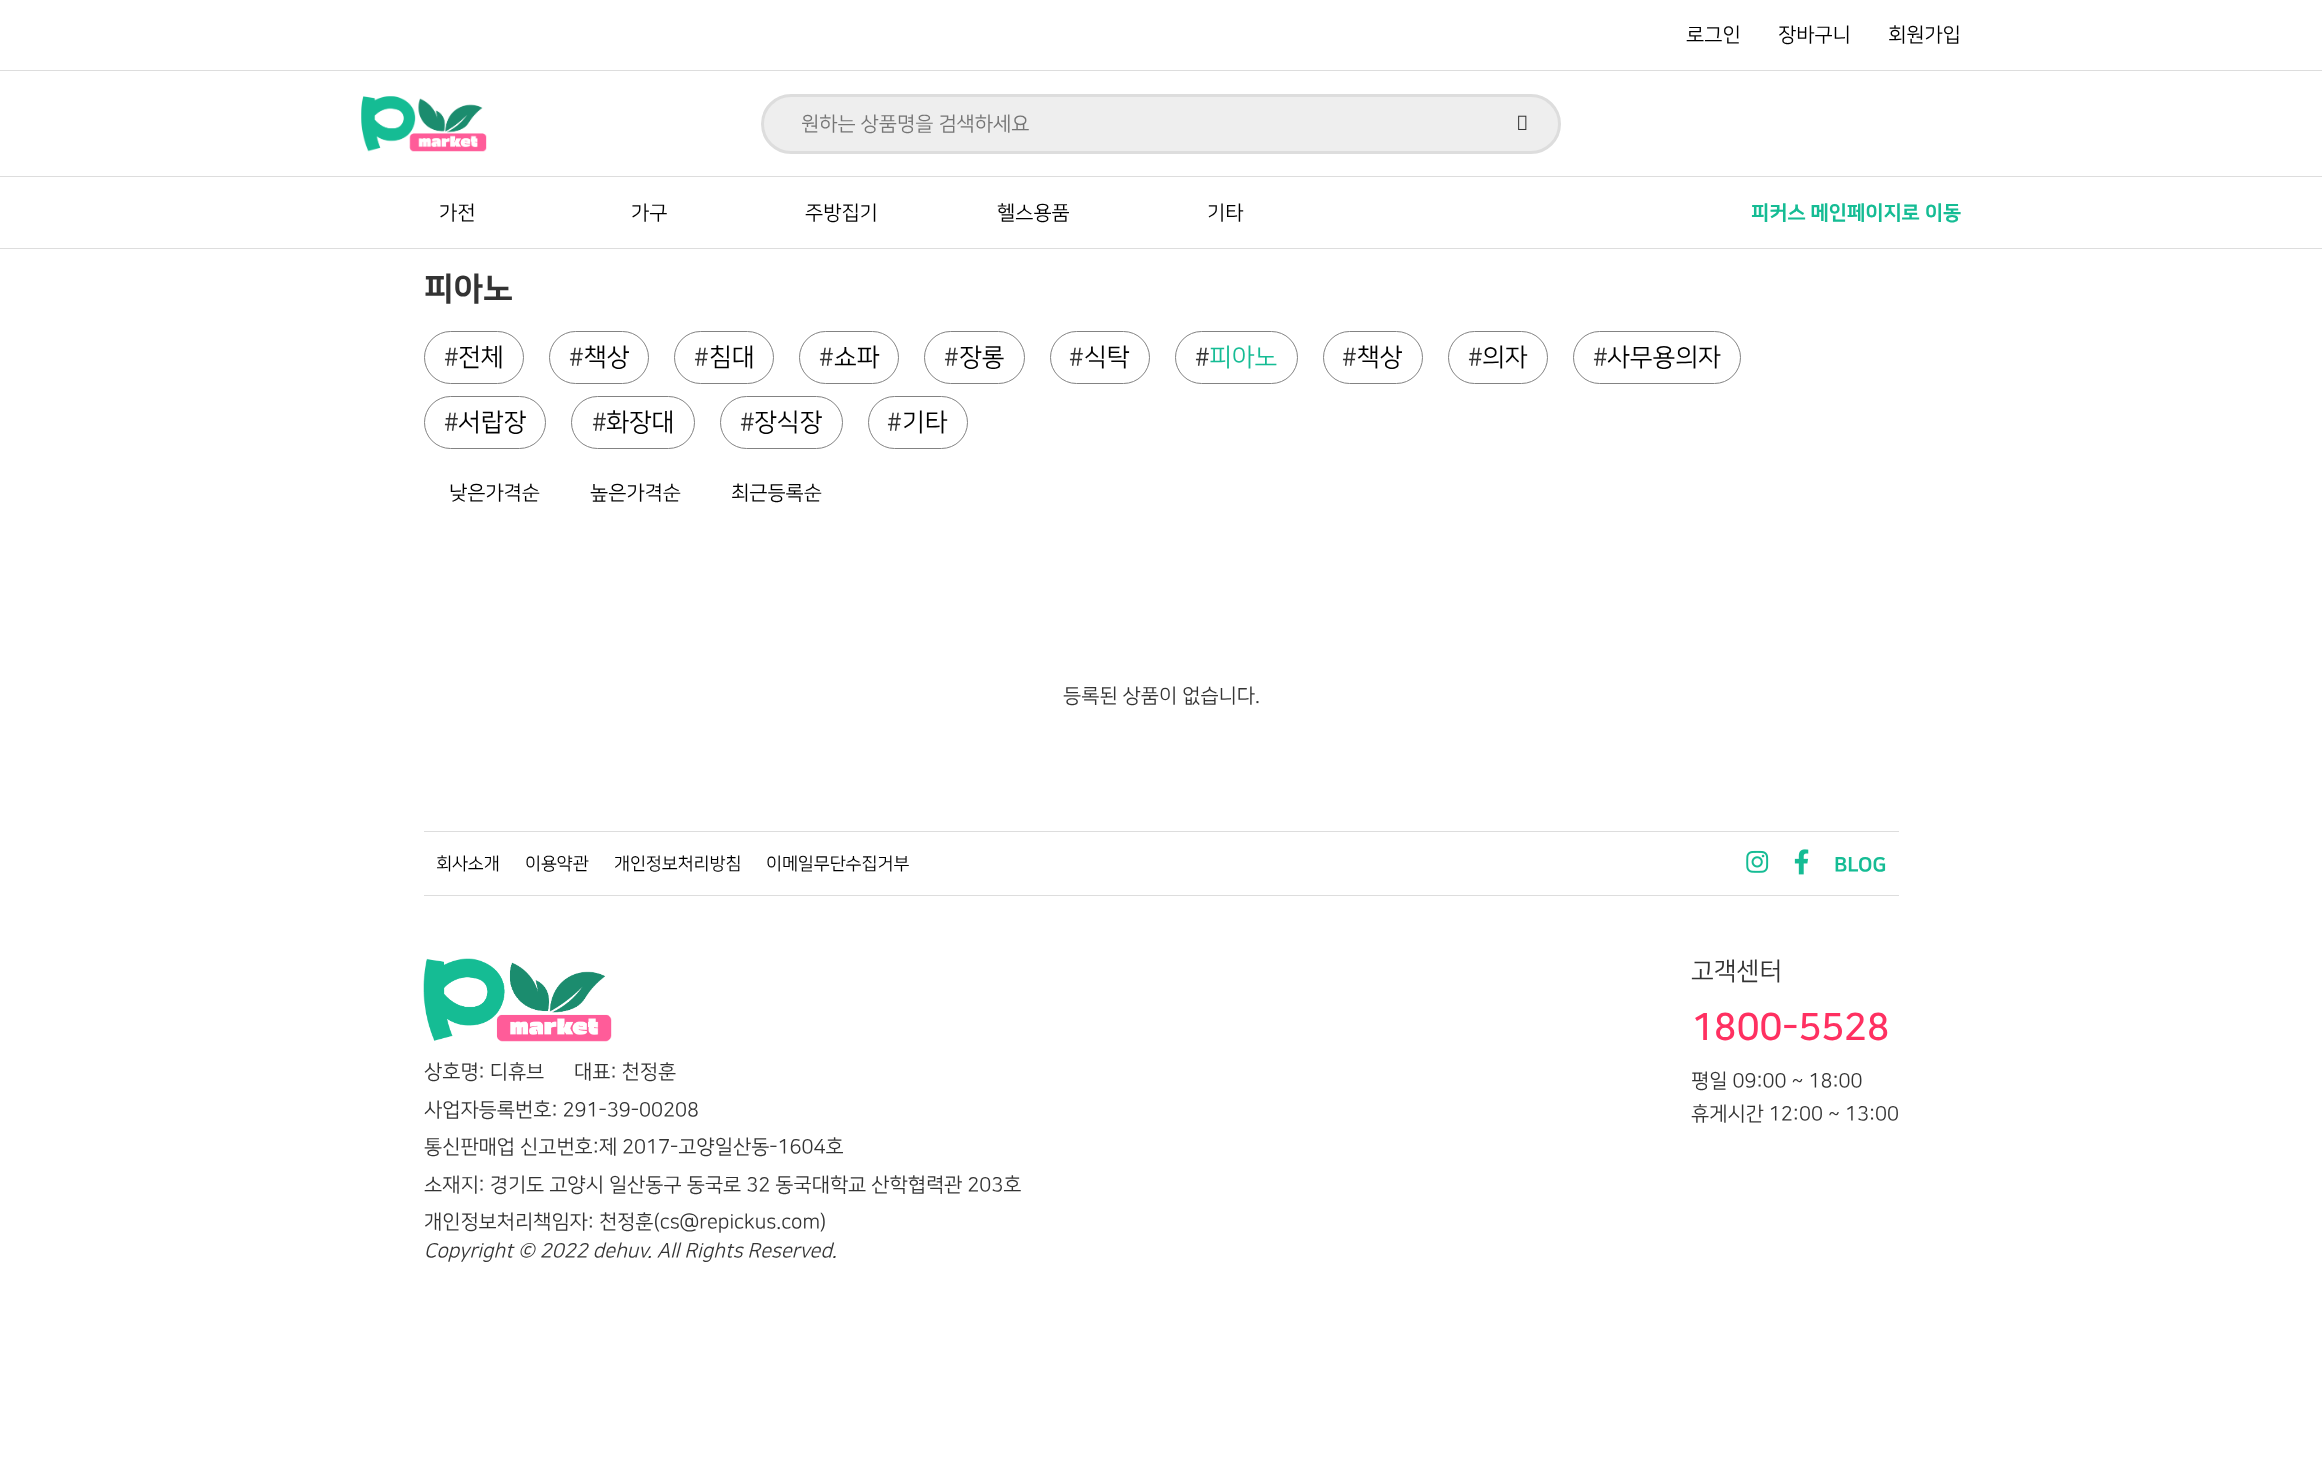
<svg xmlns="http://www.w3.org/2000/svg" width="2322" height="1479">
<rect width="100%" height="100%" fill="#fff"/>
<rect y="70" width="2322" height="1" fill="#ddd"/>
<text x="1686" y="41" style="font-family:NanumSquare;font-size:20px;fill:#000">로그인</text>
<text x="1778" y="41" style="font-family:NanumSquare;font-size:20px;fill:#000">장바구니</text>
<text x="1888" y="41" style="font-family:NanumSquare;font-size:20px;fill:#000">회원가입</text>
<image x="361" y="96" width="126" height="56" href="media/1.png"/>
<rect x="762.5" y="95.5" width="797" height="57" rx="28.5" fill="#eee" stroke="#ddd" stroke-width="3"/>
<text x="801" y="130" style="font-family:NanumSquare;font-size:20px;fill:#757575">원하는 상품명을 검색하세요</text>
<image x="1518" y="115" width="9" height="15" href="media/2.png"/>
<rect y="176" width="2322" height="1" fill="#ddd"/>
<rect y="248" width="2322" height="1" fill="#ddd"/>
<text x="439" y="219" style="font-family:NanumSquare;font-size:20px;fill:#000">가전</text>
<text x="631" y="219" style="font-family:NanumSquare;font-size:20px;fill:#000">가구</text>
<text x="805" y="219" style="font-family:NanumSquare;font-size:20px;fill:#000">주방집기</text>
<text x="997" y="219" style="font-family:NanumSquare;font-size:20px;fill:#000">헬스용품</text>
<text x="1207" y="219" style="font-family:NanumSquare;font-size:20px;fill:#000">기타</text>
<text x="1751" y="219" style="font-family:NanumSquare;font-size:20px;font-weight:800;fill:#15bc94">피커스 메인페이지로 이동</text>
<text x="424" y="299" style="font-family:NanumSquare;font-size:32.5px;font-weight:800;fill:#333">피아노</text>
<rect x="424.5" y="331.5" width="99" height="52" rx="26" fill="none" stroke="#838383"/>
<text x="444" y="365" style="font-family:NanumSquare;font-size:25px;fill:#333">#</text>
<text x="458" y="365" style="font-family:NanumSquare;font-size:25px;fill:#000">전체</text>
<rect x="549.5" y="331.5" width="99" height="52" rx="26" fill="none" stroke="#838383"/>
<text x="569" y="365" style="font-family:NanumSquare;font-size:25px;fill:#333">#</text>
<text x="584" y="365" style="font-family:NanumSquare;font-size:25px;fill:#000">책상</text>
<rect x="674.5" y="331.5" width="99" height="52" rx="26" fill="none" stroke="#838383"/>
<text x="694" y="365" style="font-family:NanumSquare;font-size:25px;fill:#333">#</text>
<text x="709" y="365" style="font-family:NanumSquare;font-size:25px;fill:#000">침대</text>
<rect x="799.5" y="331.5" width="99" height="52" rx="26" fill="none" stroke="#838383"/>
<text x="819" y="365" style="font-family:NanumSquare;font-size:25px;fill:#333">#</text>
<text x="834" y="365" style="font-family:NanumSquare;font-size:25px;fill:#000">쇼파</text>
<rect x="924.5" y="331.5" width="100" height="52" rx="26" fill="none" stroke="#838383"/>
<text x="944" y="365" style="font-family:NanumSquare;font-size:25px;fill:#333">#</text>
<text x="959" y="365" style="font-family:NanumSquare;font-size:25px;fill:#000">장롱</text>
<rect x="1050.5" y="331.5" width="99" height="52" rx="26" fill="none" stroke="#838383"/>
<text x="1069" y="365" style="font-family:NanumSquare;font-size:25px;fill:#333">#</text>
<text x="1084" y="365" style="font-family:NanumSquare;font-size:25px;fill:#000">식탁</text>
<rect x="1175.5" y="331.5" width="122" height="52" rx="26" fill="none" stroke="#838383"/>
<text x="1195" y="365" style="font-family:NanumSquare;font-size:25px;fill:#333">#</text>
<text x="1209" y="365" style="font-family:NanumSquare;font-size:25px;fill:#15bc94">피아노</text>
<rect x="1323.5" y="331.5" width="99" height="52" rx="26" fill="none" stroke="#838383"/>
<text x="1342" y="365" style="font-family:NanumSquare;font-size:25px;fill:#333">#</text>
<text x="1357" y="365" style="font-family:NanumSquare;font-size:25px;fill:#000">책상</text>
<rect x="1448.5" y="331.5" width="99" height="52" rx="26" fill="none" stroke="#838383"/>
<text x="1468" y="365" style="font-family:NanumSquare;font-size:25px;fill:#333">#</text>
<text x="1482" y="365" style="font-family:NanumSquare;font-size:25px;fill:#000">의자</text>
<rect x="1573.5" y="331.5" width="167" height="52" rx="26" fill="none" stroke="#838383"/>
<text x="1593" y="365" style="font-family:NanumSquare;font-size:25px;fill:#333">#</text>
<text x="1607" y="365" style="font-family:NanumSquare;font-size:25px;fill:#000">사무용의자</text>
<rect x="424.5" y="396.5" width="121" height="52" rx="26" fill="none" stroke="#838383"/>
<text x="444" y="430" style="font-family:NanumSquare;font-size:25px;fill:#333">#</text>
<text x="458" y="430" style="font-family:NanumSquare;font-size:25px;fill:#000">서랍장</text>
<rect x="571.5" y="396.5" width="123" height="52" rx="26" fill="none" stroke="#838383"/>
<text x="592" y="430" style="font-family:NanumSquare;font-size:25px;fill:#333">#</text>
<text x="606" y="430" style="font-family:NanumSquare;font-size:25px;fill:#000">화장대</text>
<rect x="720.5" y="396.5" width="122" height="52" rx="26" fill="none" stroke="#838383"/>
<text x="740" y="430" style="font-family:NanumSquare;font-size:25px;fill:#333">#</text>
<text x="754" y="430" style="font-family:NanumSquare;font-size:25px;fill:#000">장식장</text>
<rect x="868.5" y="396.5" width="99" height="52" rx="26" fill="none" stroke="#838383"/>
<text x="887" y="430" style="font-family:NanumSquare;font-size:25px;fill:#333">#</text>
<text x="902" y="430" style="font-family:NanumSquare;font-size:25px;fill:#000">기타</text>
<text x="449" y="499" style="font-family:NanumSquare;font-size:20px;fill:#000">낮은가격순</text>
<text x="590" y="499" style="font-family:NanumSquare;font-size:20px;fill:#000">높은가격순</text>
<text x="731" y="499" style="font-family:NanumSquare;font-size:20px;fill:#000">최근등록순</text>
<text x="1063" y="702" style="font-family:NanumSquare;font-size:20px;fill:#333">등록된 상품이 없습니다.</text>
<rect x="424" y="831" width="1475" height="1" fill="#ddd"/>
<rect x="424" y="895" width="1475" height="1" fill="#ddd"/>
<text x="436" y="869" style="font-family:NanumSquare;font-size:17.5px;fill:#000">회사소개</text>
<text x="525" y="869" style="font-family:NanumSquare;font-size:17.5px;fill:#000">이용약관</text>
<text x="614" y="869" style="font-family:NanumSquare;font-size:17.5px;fill:#000">개인정보처리방침</text>
<text x="766" y="869" style="font-family:NanumSquare;font-size:17.5px;fill:#000">이메일무단수집거부</text>
<image x="1746" y="850" width="23" height="23" href="media/3.png"/>
<image x="1794" y="849" width="15" height="26" href="media/4.png"/>
<text x="1834" y="871" style="font-family:NanumSquare;font-size:20px;font-weight:800;fill:#15bc94">BLOG</text>
<text x="1691" y="979" style="font-family:NanumSquare;font-size:25px;fill:#333">고객센터</text>
<text x="1691" y="1039" style="font-family:NanumSquare;font-size:37.5px;font-weight:bold;fill:#ff3061">1800-5528</text>
<text x="1691" y="1087" style="font-family:NanumSquare;font-size:20px;fill:#333">평일 09:00 ~ 18:00</text>
<text x="1691" y="1120" style="font-family:NanumSquare;font-size:20px;fill:#333">휴게시간 12:00 ~ 13:00</text>
<image x="423" y="958" width="189" height="84" href="media/5.png"/>
<text x="424" y="1078" style="font-family:NanumSquare;font-size:20px;fill:#333">상호명: 디휴브</text>
<text x="574" y="1078" style="font-family:NanumSquare;font-size:20px;fill:#333">대표: 천정훈</text>
<text x="424" y="1116" style="font-family:NanumSquare;font-size:20px;fill:#333">사업자등록번호: 291-39-00208</text>
<text x="424" y="1153" style="font-family:NanumSquare;font-size:20px;fill:#333">통신판매업 신고번호:제 2017-고양일산동-1604호</text>
<text x="424" y="1191" style="font-family:NanumSquare;font-size:20px;fill:#333">소재지: 경기도 고양시 일산동구 동국로 32 동국대학교 산학협력관 203호</text>
<text x="424" y="1228" style="font-family:NanumSquare;font-size:20px;fill:#333">개인정보처리책임자: 천정훈(cs@repickus.com)</text>
<text x="424" y="1257" style="font-family:NanumSquare;font-size:20px;font-style:italic;fill:#333">Copyright © 2022 dehuv. All Rights Reserved.</text>
</svg>
